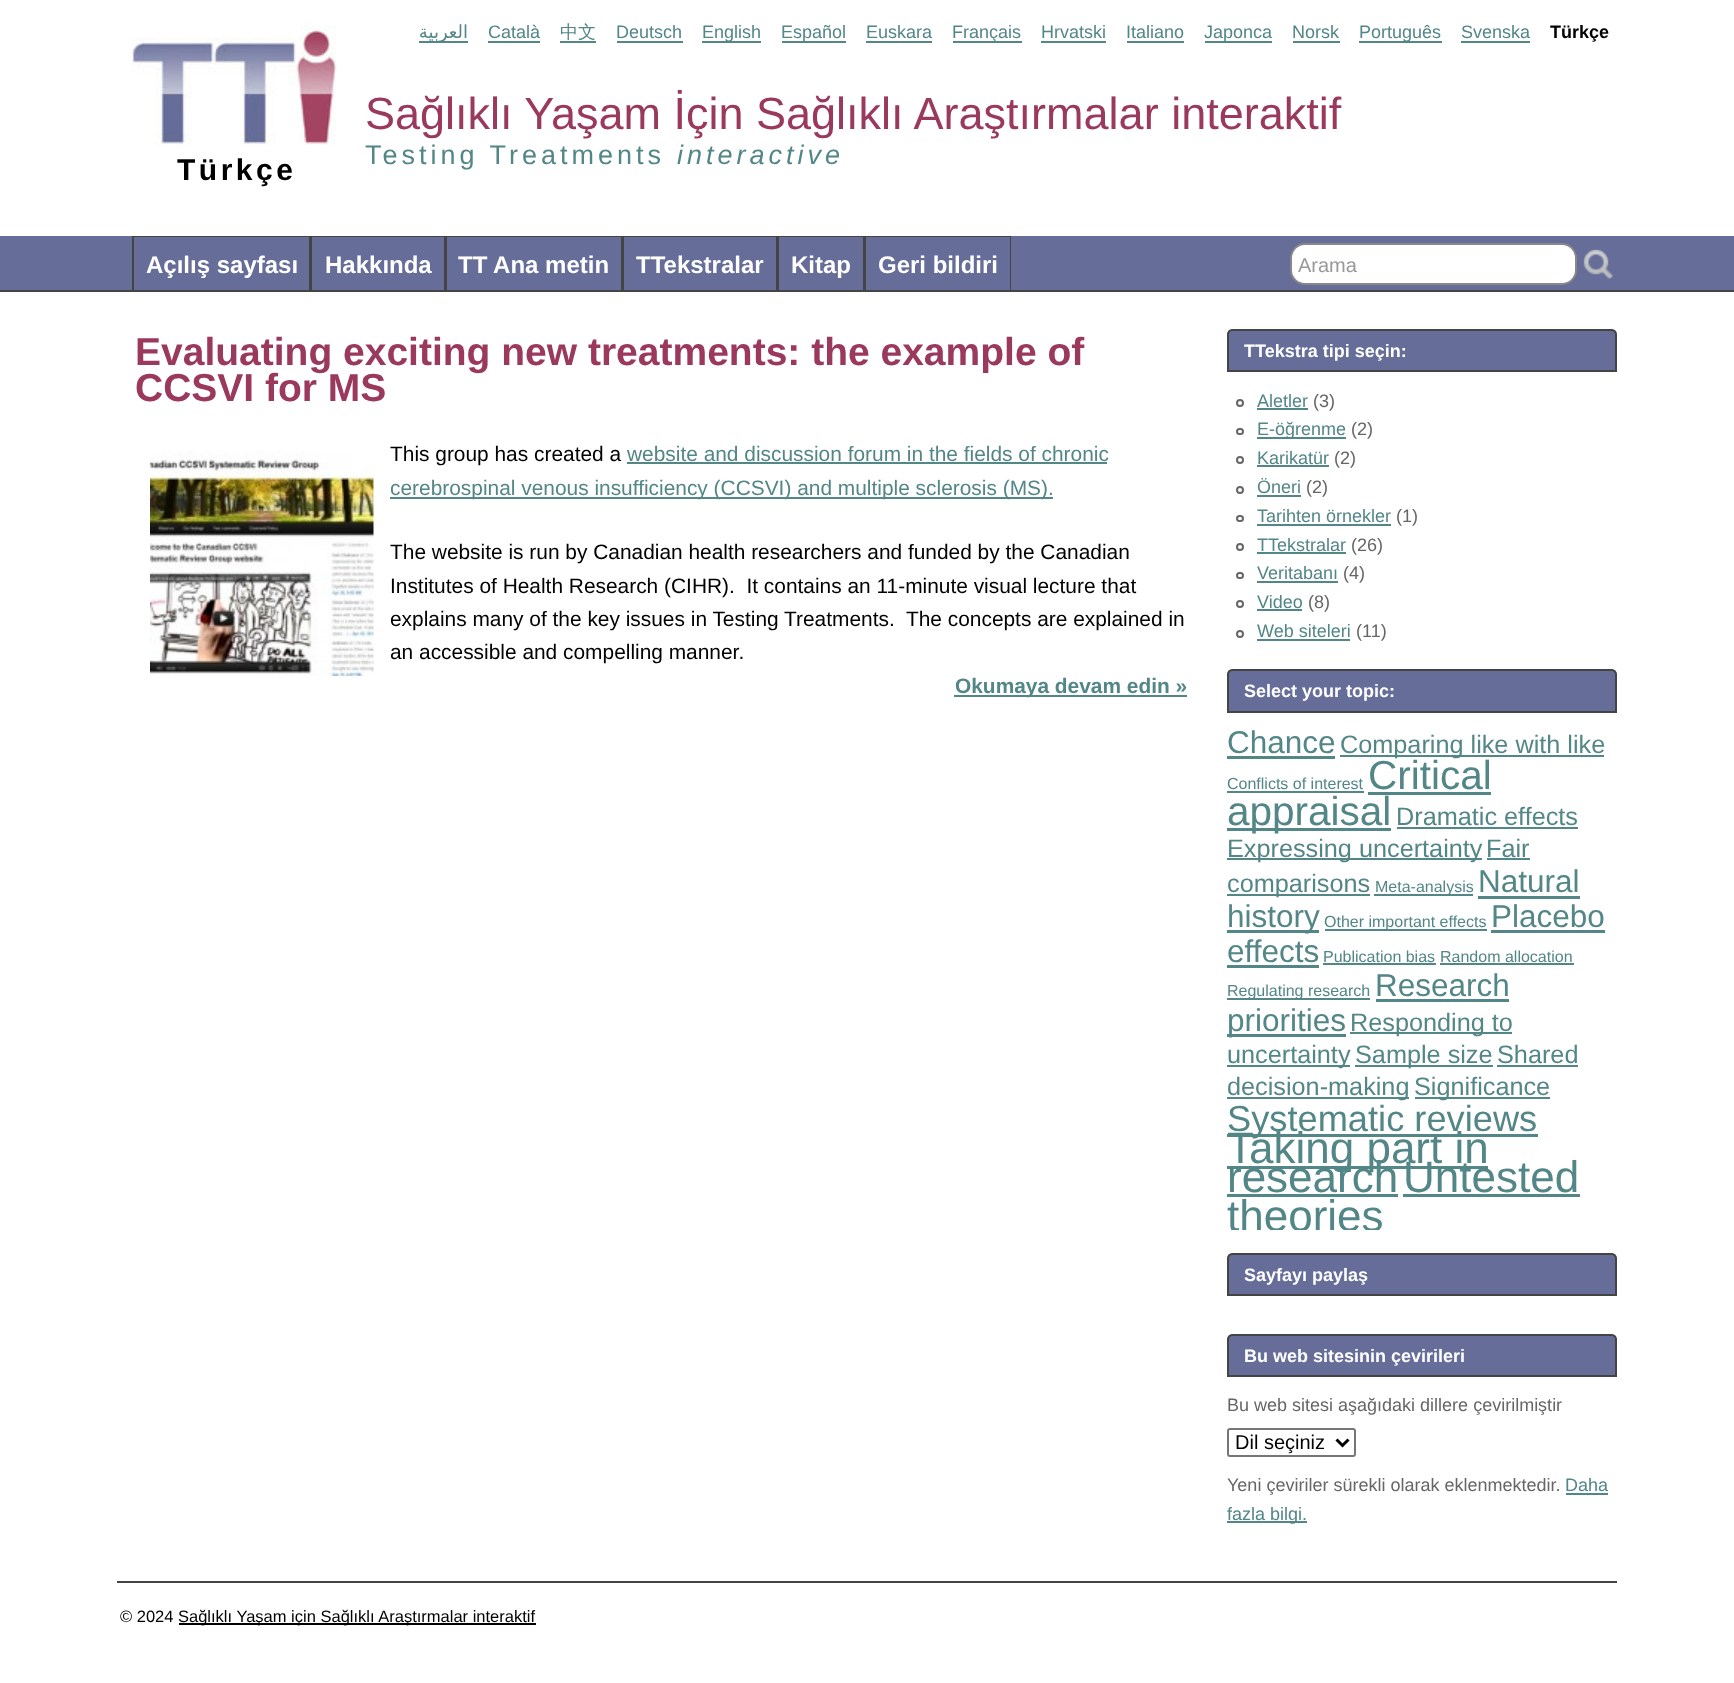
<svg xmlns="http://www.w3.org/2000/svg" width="1734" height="1683">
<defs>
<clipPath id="clip1"><rect x="1227" y="669" width="390" height="561"/></clipPath>
</defs>
<rect width="100%" height="100%" fill="#fff"/>
<rect x="419" y="41" width="49" height="2" fill="#538687"/>
<text x="468" y="38" style="font-family:DejaVu Sans;font-size:18px;direction:rtl;fill:#538687">العربية</text>
<text x="488" y="38" style="font-family:Liberation Sans;font-size:18px;fill:#538687">Català</text>
<rect x="488" y="41" width="52" height="2" fill="#538687"/>
<text x="560" y="38" style="font-family:WenQuanYi Zen Hei;font-size:18px;font-weight:500;fill:#538687">中文</text>
<rect x="560" y="41" width="36" height="2" fill="#538687"/>
<text x="616" y="38" style="font-family:Liberation Sans;font-size:18px;fill:#538687">Deutsch</text>
<rect x="617" y="41" width="66" height="2" fill="#538687"/>
<rect x="702" y="41" width="59" height="2" fill="#538687"/>
<text x="702" y="38" style="font-family:Liberation Sans;font-size:18px;fill:#538687">English</text>
<rect x="782" y="41" width="64" height="2" fill="#538687"/>
<text x="781" y="38" style="font-family:Liberation Sans;font-size:18px;fill:#538687">Español</text>
<text x="866" y="38" style="font-family:Liberation Sans;font-size:18px;fill:#538687">Euskara</text>
<rect x="866" y="41" width="66" height="2" fill="#538687"/>
<rect x="953" y="41" width="69" height="2" fill="#538687"/>
<text x="952" y="38" style="font-family:Liberation Sans;font-size:18px;fill:#538687">Français</text>
<text x="1041" y="38" style="font-family:Liberation Sans;font-size:18px;fill:#538687">Hrvatski</text>
<rect x="1041" y="41" width="65" height="2" fill="#538687"/>
<text x="1126" y="38" style="font-family:Liberation Sans;font-size:18px;fill:#538687">Italiano</text>
<rect x="1127" y="41" width="57" height="2" fill="#538687"/>
<rect x="1205" y="41" width="67" height="2" fill="#538687"/>
<text x="1204" y="38" style="font-family:Liberation Sans;font-size:18px;fill:#538687">Japonca</text>
<text x="1292" y="38" style="font-family:Liberation Sans;font-size:18px;fill:#538687">Norsk</text>
<rect x="1293" y="41" width="47" height="2" fill="#538687"/>
<rect x="1359" y="41" width="83" height="2" fill="#538687"/>
<text x="1359" y="38" style="font-family:Liberation Sans;font-size:18px;fill:#538687">Português</text>
<text x="1461" y="38" style="font-family:Liberation Sans;font-size:18px;fill:#538687">Svenska</text>
<rect x="1461" y="41" width="69" height="2" fill="#538687"/>
<text x="1550" y="38" style="font-family:Liberation Sans;font-size:18px;font-weight:bold;fill:#000">Türkçe</text>
<image x="132" y="25" width="205" height="120" href="media/1.png"/>
<text x="177" y="180" style="font-family:Liberation Sans;font-size:30px;font-weight:bold;letter-spacing:3.5px;fill:#000">Türkçe</text>
<text x="365" y="129" style="font-family:Liberation Sans;font-size:45px;fill:#9a395c">Sağlıklı Yaşam İçin Sağlıklı Araştırmalar interaktif</text>
<text x="365" y="164" style="font-family:Liberation Sans;font-size:27px;letter-spacing:4px;fill:#538687">Testing Treatments</text>
<text x="677" y="164" style="font-family:Liberation Sans;font-size:27px;font-style:italic;letter-spacing:4px;fill:#538687">interactive</text>
<rect y="236" width="1734" height="54" fill="#656d98"/>
<rect y="290" width="1734" height="2" fill="#444"/>
<rect x="133" y="237" width="177" height="53" fill="none" stroke="#444" stroke-width="2"/>
<rect x="134" y="237" width="175" height="53" fill="#656d98"/>
<text x="146" y="273" style="font-family:Liberation Sans;font-size:24px;font-weight:bold;fill:#fff">Açılış sayfası</text>
<rect x="312" y="237" width="133" height="53" fill="none" stroke="#444" stroke-width="2"/>
<rect x="312" y="237" width="132" height="53" fill="#656d98"/>
<text x="325" y="273" style="font-family:Liberation Sans;font-size:24px;font-weight:bold;fill:#fff">Hakkında</text>
<rect x="447" y="237" width="175" height="53" fill="none" stroke="#444" stroke-width="2"/>
<rect x="447" y="237" width="174" height="53" fill="#656d98"/>
<text x="458" y="273" style="font-family:Liberation Sans;font-size:24px;font-weight:bold;fill:#fff">TT Ana metin</text>
<rect x="624" y="237" width="152" height="53" fill="none" stroke="#444" stroke-width="2"/>
<rect x="624" y="237" width="152" height="53" fill="#656d98"/>
<text x="636" y="273" style="font-family:Liberation Sans;font-size:24px;font-weight:bold;fill:#fff">TTekstralar</text>
<rect x="778" y="237" width="85" height="53" fill="none" stroke="#444" stroke-width="2"/>
<rect x="779" y="237" width="84" height="53" fill="#656d98"/>
<text x="791" y="273" style="font-family:Liberation Sans;font-size:24px;font-weight:bold;fill:#fff">Kitap</text>
<rect x="865" y="237" width="145" height="53" fill="none" stroke="#444" stroke-width="2"/>
<rect x="866" y="237" width="144" height="53" fill="#656d98"/>
<text x="878" y="273" style="font-family:Liberation Sans;font-size:24px;font-weight:bold;fill:#fff">Geri bildiri</text>
<rect x="1291" y="244" width="285" height="40" rx="14" fill="#fff" stroke="#888" stroke-width="2"/>
<text x="1298" y="272" style="font-family:Liberation Sans;font-size:20px;fill:#999">Arama</text>
<image x="1583" y="249" width="30" height="30" href="media/2.png"/>
<text x="135" y="365" style="font-family:Liberation Sans;font-size:39px;font-weight:bold;fill:#9a395c">Evaluating exciting new treatments: the example of</text>
<text x="135" y="401" style="font-family:Liberation Sans;font-size:39px;font-weight:bold;fill:#9a395c">CCSVI for MS</text>
<image x="150" y="451" width="224" height="225" href="media/3.png"/>
<text x="390" y="461" style="font-family:Liberation Sans;font-size:20.9px;fill:#000">This group has created a</text>
<text x="627" y="461" style="font-family:Liberation Sans;font-size:20.9px;fill:#538687">website and discussion forum in the fields of chronic</text>
<rect x="627" y="462" width="480" height="2" fill="#538687"/>
<rect x="390" y="497" width="663" height="2" fill="#538687"/>
<text x="390" y="495" style="font-family:Liberation Sans;font-size:20.9px;fill:#538687">cerebrospinal venous insufficiency (CCSVI) and multiple sclerosis (MS).</text>
<text x="390" y="559" style="font-family:Liberation Sans;font-size:20.9px;fill:#000">The website is run by Canadian health researchers and funded by the Canadian</text>
<text x="390" y="593" style="font-family:Liberation Sans;font-size:20.9px;fill:#000" xml:space="preserve">Institutes of Health Research (CIHR).  It contains an 11-minute visual lecture that</text>
<text x="390" y="626" style="font-family:Liberation Sans;font-size:20.9px;fill:#000" xml:space="preserve">explains many of the key issues in Testing Treatments.  The concepts are explained in</text>
<text x="390" y="659" style="font-family:Liberation Sans;font-size:20.9px;fill:#000">an accessible and compelling manner.</text>
<rect x="954" y="695" width="233" height="2" fill="#538687"/>
<text x="955" y="693" style="font-family:Liberation Sans;font-size:20.9px;font-weight:bold;fill:#538687">Okumaya devam edin »</text>
<path d="M1232 330h380c2 0 4 2 4 4v37h-388v-37c0-2 2-4 4-4z" fill="#656d98" stroke="#444" stroke-width="2"/>
<text x="1244" y="357" style="font-family:Liberation Sans;font-size:18px;font-weight:bold;fill:#fff">TTekstra tipi seçin:</text>
<circle cx="1240" cy="403" r="3" fill="none" stroke="#666" stroke-width="2"/>
<text x="1257" y="407" style="font-family:Liberation Sans;font-size:18px;fill:#538687">Aletler</text>
<rect x="1257" y="408" width="51" height="2" fill="#538687"/>
<text x="1313" y="407" style="font-family:Liberation Sans;font-size:18px;fill:#666">(3)</text>
<rect x="1237" y="429" width="6" height="5" rx="2.5" fill="none" stroke="#666" stroke-width="2"/>
<rect x="1257" y="437" width="89" height="2" fill="#538687"/>
<text x="1257" y="435" style="font-family:Liberation Sans;font-size:18px;fill:#538687">E-öğrenme</text>
<text x="1351" y="435" style="font-family:Liberation Sans;font-size:18px;fill:#666">(2)</text>
<circle cx="1240" cy="460" r="3" fill="none" stroke="#666" stroke-width="2"/>
<text x="1257" y="464" style="font-family:Liberation Sans;font-size:18px;fill:#538687">Karikatür</text>
<rect x="1257" y="465" width="72" height="2" fill="#538687"/>
<text x="1334" y="464" style="font-family:Liberation Sans;font-size:18px;fill:#666">(2)</text>
<circle cx="1240" cy="490" r="3" fill="none" stroke="#666" stroke-width="2"/>
<text x="1257" y="493" style="font-family:Liberation Sans;font-size:18px;fill:#538687">Öneri</text>
<rect x="1257" y="495" width="44" height="2" fill="#538687"/>
<text x="1306" y="493" style="font-family:Liberation Sans;font-size:18px;fill:#666">(2)</text>
<rect x="1237" y="516" width="6" height="5" rx="2.5" fill="none" stroke="#666" stroke-width="2"/>
<text x="1257" y="522" style="font-family:Liberation Sans;font-size:18px;fill:#538687">Tarihten örnekler</text>
<rect x="1257" y="524" width="134" height="2" fill="#538687"/>
<text x="1396" y="522" style="font-family:Liberation Sans;font-size:18px;fill:#666">(1)</text>
<circle cx="1240" cy="547" r="3" fill="none" stroke="#666" stroke-width="2"/>
<text x="1257" y="551" style="font-family:Liberation Sans;font-size:18px;fill:#538687">TTekstralar</text>
<rect x="1257" y="552" width="89" height="2" fill="#538687"/>
<text x="1351" y="551" style="font-family:Liberation Sans;font-size:18px;fill:#666">(26)</text>
<rect x="1237" y="573" width="6" height="5" rx="2.5" fill="none" stroke="#666" stroke-width="2"/>
<text x="1257" y="579" style="font-family:Liberation Sans;font-size:18px;fill:#538687">Veritabanı</text>
<rect x="1257" y="581" width="81" height="2" fill="#538687"/>
<text x="1343" y="579" style="font-family:Liberation Sans;font-size:18px;fill:#666">(4)</text>
<circle cx="1240" cy="604" r="3" fill="none" stroke="#666" stroke-width="2"/>
<text x="1257" y="608" style="font-family:Liberation Sans;font-size:18px;fill:#538687">Video</text>
<rect x="1257" y="609" width="45" height="2" fill="#538687"/>
<text x="1308" y="608" style="font-family:Liberation Sans;font-size:18px;fill:#666">(8)</text>
<circle cx="1240" cy="634" r="3" fill="none" stroke="#666" stroke-width="2"/>
<text x="1257" y="637" style="font-family:Liberation Sans;font-size:18px;fill:#538687">Web siteleri</text>
<rect x="1257" y="639" width="93" height="2" fill="#538687"/>
<text x="1356" y="637" style="font-family:Liberation Sans;font-size:18px;fill:#666">(11)</text>
<path d="M1232 670h380c2 0 4 2 4 4v38h-388v-38c0-2 2-4 4-4z" fill="#656d98" stroke="#444" stroke-width="2"/>
<text x="1244" y="697" style="font-family:Liberation Sans;font-size:18px;font-weight:bold;fill:#fff">Select your topic:</text>
<text x="1227" y="753" style="font-family:Liberation Sans;font-size:31.5px;fill:#538687">Chance</text>
<rect x="1227" y="756" width="108" height="3" fill="#538687"/>
<rect x="1340" y="755" width="264" height="2" fill="#538687"/>
<text x="1340" y="753" style="font-family:Liberation Sans;font-size:25.25px;fill:#538687">Comparing like with like</text>
<text x="1227" y="789" style="font-family:Liberation Sans;font-size:16px;fill:#538687">Conflicts of interest</text>
<rect x="1227" y="791" width="137" height="2" fill="#538687"/>
<text x="1368" y="789" style="font-family:Liberation Sans;font-size:40.5px;fill:#538687">Critical</text>
<rect x="1368" y="792" width="123" height="3" fill="#538687"/>
<rect x="1227" y="828" width="164" height="3" fill="#538687"/>
<text x="1227" y="825" style="font-family:Liberation Sans;font-size:40.5px;fill:#538687">appraisal</text>
<text x="1396" y="825" style="font-family:Liberation Sans;font-size:25.25px;fill:#538687">Dramatic effects</text>
<rect x="1397" y="827" width="181" height="2" fill="#538687"/>
<rect x="1227" y="858" width="255" height="2" fill="#538687"/>
<text x="1227" y="857" style="font-family:Liberation Sans;font-size:25.25px;fill:#538687">Expressing uncertainty</text>
<text x="1486" y="857" style="font-family:Liberation Sans;font-size:25.25px;fill:#538687">Fair</text>
<rect x="1487" y="858" width="43" height="2" fill="#538687"/>
<rect x="1227" y="894" width="143" height="2" fill="#538687"/>
<text x="1227" y="892" style="font-family:Liberation Sans;font-size:25.25px;fill:#538687">comparisons</text>
<rect x="1374" y="894" width="99" height="2" fill="#538687"/>
<text x="1375" y="892" style="font-family:Liberation Sans;font-size:16px;fill:#538687">Meta-analysis</text>
<text x="1478" y="892" style="font-family:Liberation Sans;font-size:31.5px;fill:#538687">Natural</text>
<rect x="1478" y="896" width="102" height="3" fill="#538687"/>
<rect x="1227" y="930" width="92" height="3" fill="#538687"/>
<text x="1227" y="927" style="font-family:Liberation Sans;font-size:31.5px;fill:#538687">history</text>
<rect x="1325" y="929" width="162" height="2" fill="#538687"/>
<text x="1324" y="927" style="font-family:Liberation Sans;font-size:16px;fill:#538687">Other important effects</text>
<text x="1491" y="927" style="font-family:Liberation Sans;font-size:31.5px;fill:#538687">Placebo</text>
<rect x="1491" y="930" width="114" height="3" fill="#538687"/>
<text x="1227" y="962" style="font-family:Liberation Sans;font-size:31.5px;fill:#538687">effects</text>
<rect x="1227" y="965" width="92" height="3" fill="#538687"/>
<text x="1323" y="962" style="font-family:Liberation Sans;font-size:16px;fill:#538687">Publication bias</text>
<rect x="1323" y="963" width="113" height="2" fill="#538687"/>
<text x="1440" y="962" style="font-family:Liberation Sans;font-size:16px;fill:#538687">Random allocation</text>
<rect x="1440" y="963" width="134" height="2" fill="#538687"/>
<rect x="1227" y="998" width="143" height="2" fill="#538687"/>
<text x="1227" y="996" style="font-family:Liberation Sans;font-size:16px;fill:#538687">Regulating research</text>
<text x="1375" y="996" style="font-family:Liberation Sans;font-size:31.5px;fill:#538687">Research</text>
<rect x="1376" y="999" width="133" height="3" fill="#538687"/>
<rect x="1227" y="1034" width="119" height="3" fill="#538687"/>
<text x="1227" y="1031" style="font-family:Liberation Sans;font-size:31.5px;fill:#538687">priorities</text>
<rect x="1350" y="1032" width="162" height="2" fill="#538687"/>
<text x="1350" y="1031" style="font-family:Liberation Sans;font-size:25.25px;fill:#538687">Responding to</text>
<rect x="1227" y="1065" width="123" height="2" fill="#538687"/>
<text x="1227" y="1063" style="font-family:Liberation Sans;font-size:25.25px;fill:#538687">uncertainty</text>
<rect x="1355" y="1065" width="138" height="2" fill="#538687"/>
<text x="1355" y="1063" style="font-family:Liberation Sans;font-size:25.25px;fill:#538687">Sample size</text>
<text x="1497" y="1063" style="font-family:Liberation Sans;font-size:25.25px;fill:#538687">Shared</text>
<rect x="1497" y="1065" width="81" height="2" fill="#538687"/>
<rect x="1227" y="1097" width="182" height="2" fill="#538687"/>
<text x="1227" y="1095" style="font-family:Liberation Sans;font-size:25.25px;fill:#538687">decision-making</text>
<rect x="1415" y="1097" width="135" height="2" fill="#538687"/>
<text x="1414" y="1095" style="font-family:Liberation Sans;font-size:25.25px;fill:#538687">Significance</text>
<rect x="1227" y="1134" width="311" height="3" fill="#538687"/>
<text x="1227" y="1131" style="font-family:Liberation Sans;font-size:36.25px;fill:#538687">Systematic reviews</text>
<rect x="1227" y="1166" width="261" height="3" fill="#538687"/>
<text x="1227" y="1163" style="font-family:Liberation Sans;font-size:44px;fill:#538687">Taking part in</text>
<text x="1227" y="1192" style="font-family:Liberation Sans;font-size:44px;fill:#538687">research</text>
<rect x="1227" y="1194" width="171" height="3" fill="#538687"/>
<text x="1403" y="1192" style="font-family:Liberation Sans;font-size:44px;fill:#538687">Untested</text>
<rect x="1403" y="1194" width="177" height="3" fill="#538687"/>
<g clip-path="url(#clip1)">
<text x="1227" y="1231" style="font-family:Liberation Sans;font-size:44px;fill:#538687">theories</text>
</g>
<path d="M1232 1254h380c2 0 4 2 4 4v37h-388v-37c0-2 2-4 4-4z" fill="#656d98" stroke="#444" stroke-width="2"/>
<text x="1244" y="1281" style="font-family:Liberation Sans;font-size:18px;font-weight:bold;fill:#fff">Sayfayı paylaş</text>
<path d="M1232 1335h380c2 0 4 2 4 4v37h-388v-37c0-2 2-4 4-4z" fill="#656d98" stroke="#444" stroke-width="2"/>
<text x="1244" y="1362" style="font-family:Liberation Sans;font-size:18px;font-weight:bold;fill:#fff">Bu web sitesinin çevirileri</text>
<text x="1227" y="1411" style="font-family:Liberation Sans;font-size:18px;fill:#666">Bu web sitesi aşağıdaki dillere çevirilmiştir</text>
<rect x="1228" y="1429" width="127" height="27" rx="2" fill="none" stroke="#767676" stroke-width="2"/>
<path d="M1336.5 1439.5l6 6l6-6" fill="none" stroke="#000" stroke-width="3"/>
<text x="1235" y="1449" style="font-family:Liberation Sans;font-size:20px;fill:#000">Dil seçiniz</text>
<text x="1227" y="1491" style="font-family:Liberation Sans;font-size:18px;fill:#666">Yeni çeviriler sürekli olarak eklenmektedir.</text>
<text x="1565" y="1491" style="font-family:Liberation Sans;font-size:18px;fill:#538687">Daha</text>
<rect x="1566" y="1493" width="42" height="2" fill="#538687"/>
<rect x="1227" y="1521" width="80" height="2" fill="#538687"/>
<text x="1227" y="1520" style="font-family:Liberation Sans;font-size:18px;fill:#538687">fazla bilgi.</text>
<rect x="117" y="1581" width="1500" height="2" fill="#444"/>
<text x="120" y="1622" style="font-family:Liberation Sans;font-size:16.5px;fill:#000">© 2024</text>
<rect x="179" y="1623" width="357" height="2" fill="#000"/>
<text x="178" y="1622" style="font-family:Liberation Sans;font-size:16.5px;fill:#000">Sağlıklı Yaşam için Sağlıklı Araştırmalar interaktif</text>
</svg>
